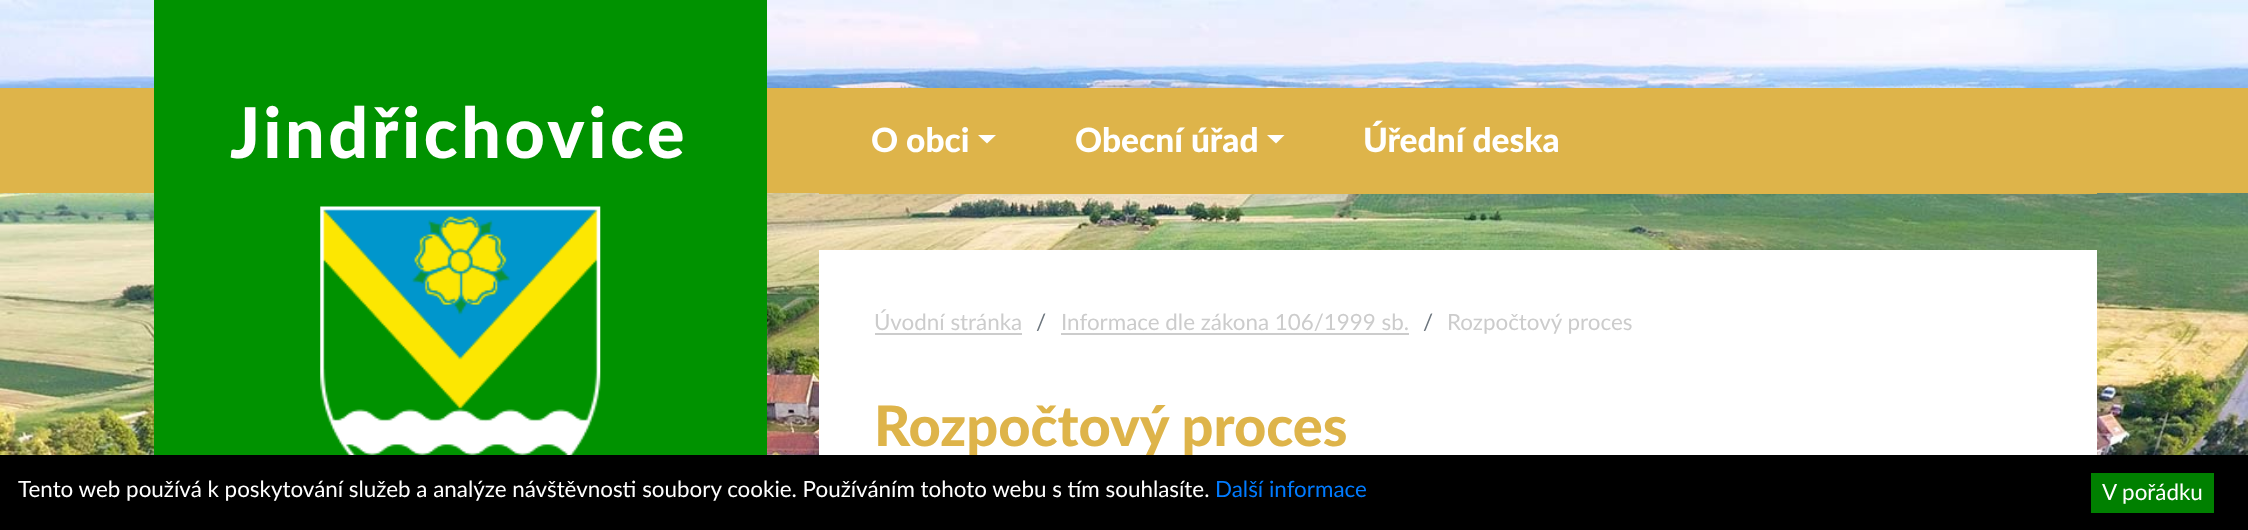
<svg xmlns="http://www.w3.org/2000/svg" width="2248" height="530">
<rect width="100%" height="100%" fill="#fff"/>
<image x="0" y="0" width="2248" height="455" href="media/1.png"/>
<rect y="88" width="2248" height="105" fill="#deb44a"/>
<rect x="154" width="613" height="455" fill="#009200"/>
<text x="230" y="158" style="font-family:Lato;font-size:70px;font-weight:900;letter-spacing:3.6px;fill:#fff">Jindřichovice</text>
<image x="320" y="206" width="281" height="249" href="media/2.png"/>
<rect x="819" y="193" width="1278" height="1" fill="#deb44a"/>
<text x="871" y="152" style="font-family:Lato;font-size:33.5px;font-weight:900;fill:#fff">O obci</text>
<path d="M978 135h18l-9 8.5z" fill="#fff"/>
<text x="1075" y="152" style="font-family:Lato;font-size:33.5px;font-weight:900;fill:#fff">Obecní úřad</text>
<path d="M1267 135h17.5l-8.5 8.5z" fill="#fff"/>
<text x="1363" y="152" style="font-family:Lato;font-size:33.5px;font-weight:900;fill:#fff">Úřední deska</text>
<rect x="819" y="250" width="1278" height="205" fill="#fff"/>
<text x="874" y="330" style="font-family:Lato;font-size:22.4px;fill:#ccc">Úvodní stránka</text>
<rect x="875" y="333" width="147" height="2" fill="#ccc"/>
<text x="1036" y="330" style="font-family:Lato;font-size:22.4px;fill:#6c757d">/</text>
<text x="1061" y="330" style="font-family:Lato;font-size:22.4px;fill:#ccc">Informace dle zákona 106/1999 sb.</text>
<rect x="1061" y="333" width="348" height="2" fill="#ccc"/>
<text x="1423" y="330" style="font-family:Lato;font-size:22.4px;fill:#6c757d">/</text>
<text x="1447" y="330" style="font-family:Lato;font-size:22.4px;fill:#ccc">Rozpočtový proces</text>
<text x="874" y="446" style="font-family:Lato;font-size:56px;font-weight:900;fill:#deb44a">Rozpočtový proces</text>
<rect y="455" width="2248" height="75" fill="#000"/>
<text x="18" y="497" style="font-family:Lato;font-size:22.4px;fill:#fff">Tento web používá k poskytování služeb a analýze návštěvnosti soubory cookie. Používáním tohoto webu s tím souhlasíte.</text>
<text x="1215" y="497" style="font-family:Lato;font-size:22.4px;fill:#007bff">Další informace</text>
<rect x="2091" y="473" width="123" height="40" fill="#008000"/>
<text x="2102" y="500" style="font-family:Lato;font-size:22.4px;fill:#fff">V pořádku</text>
</svg>
